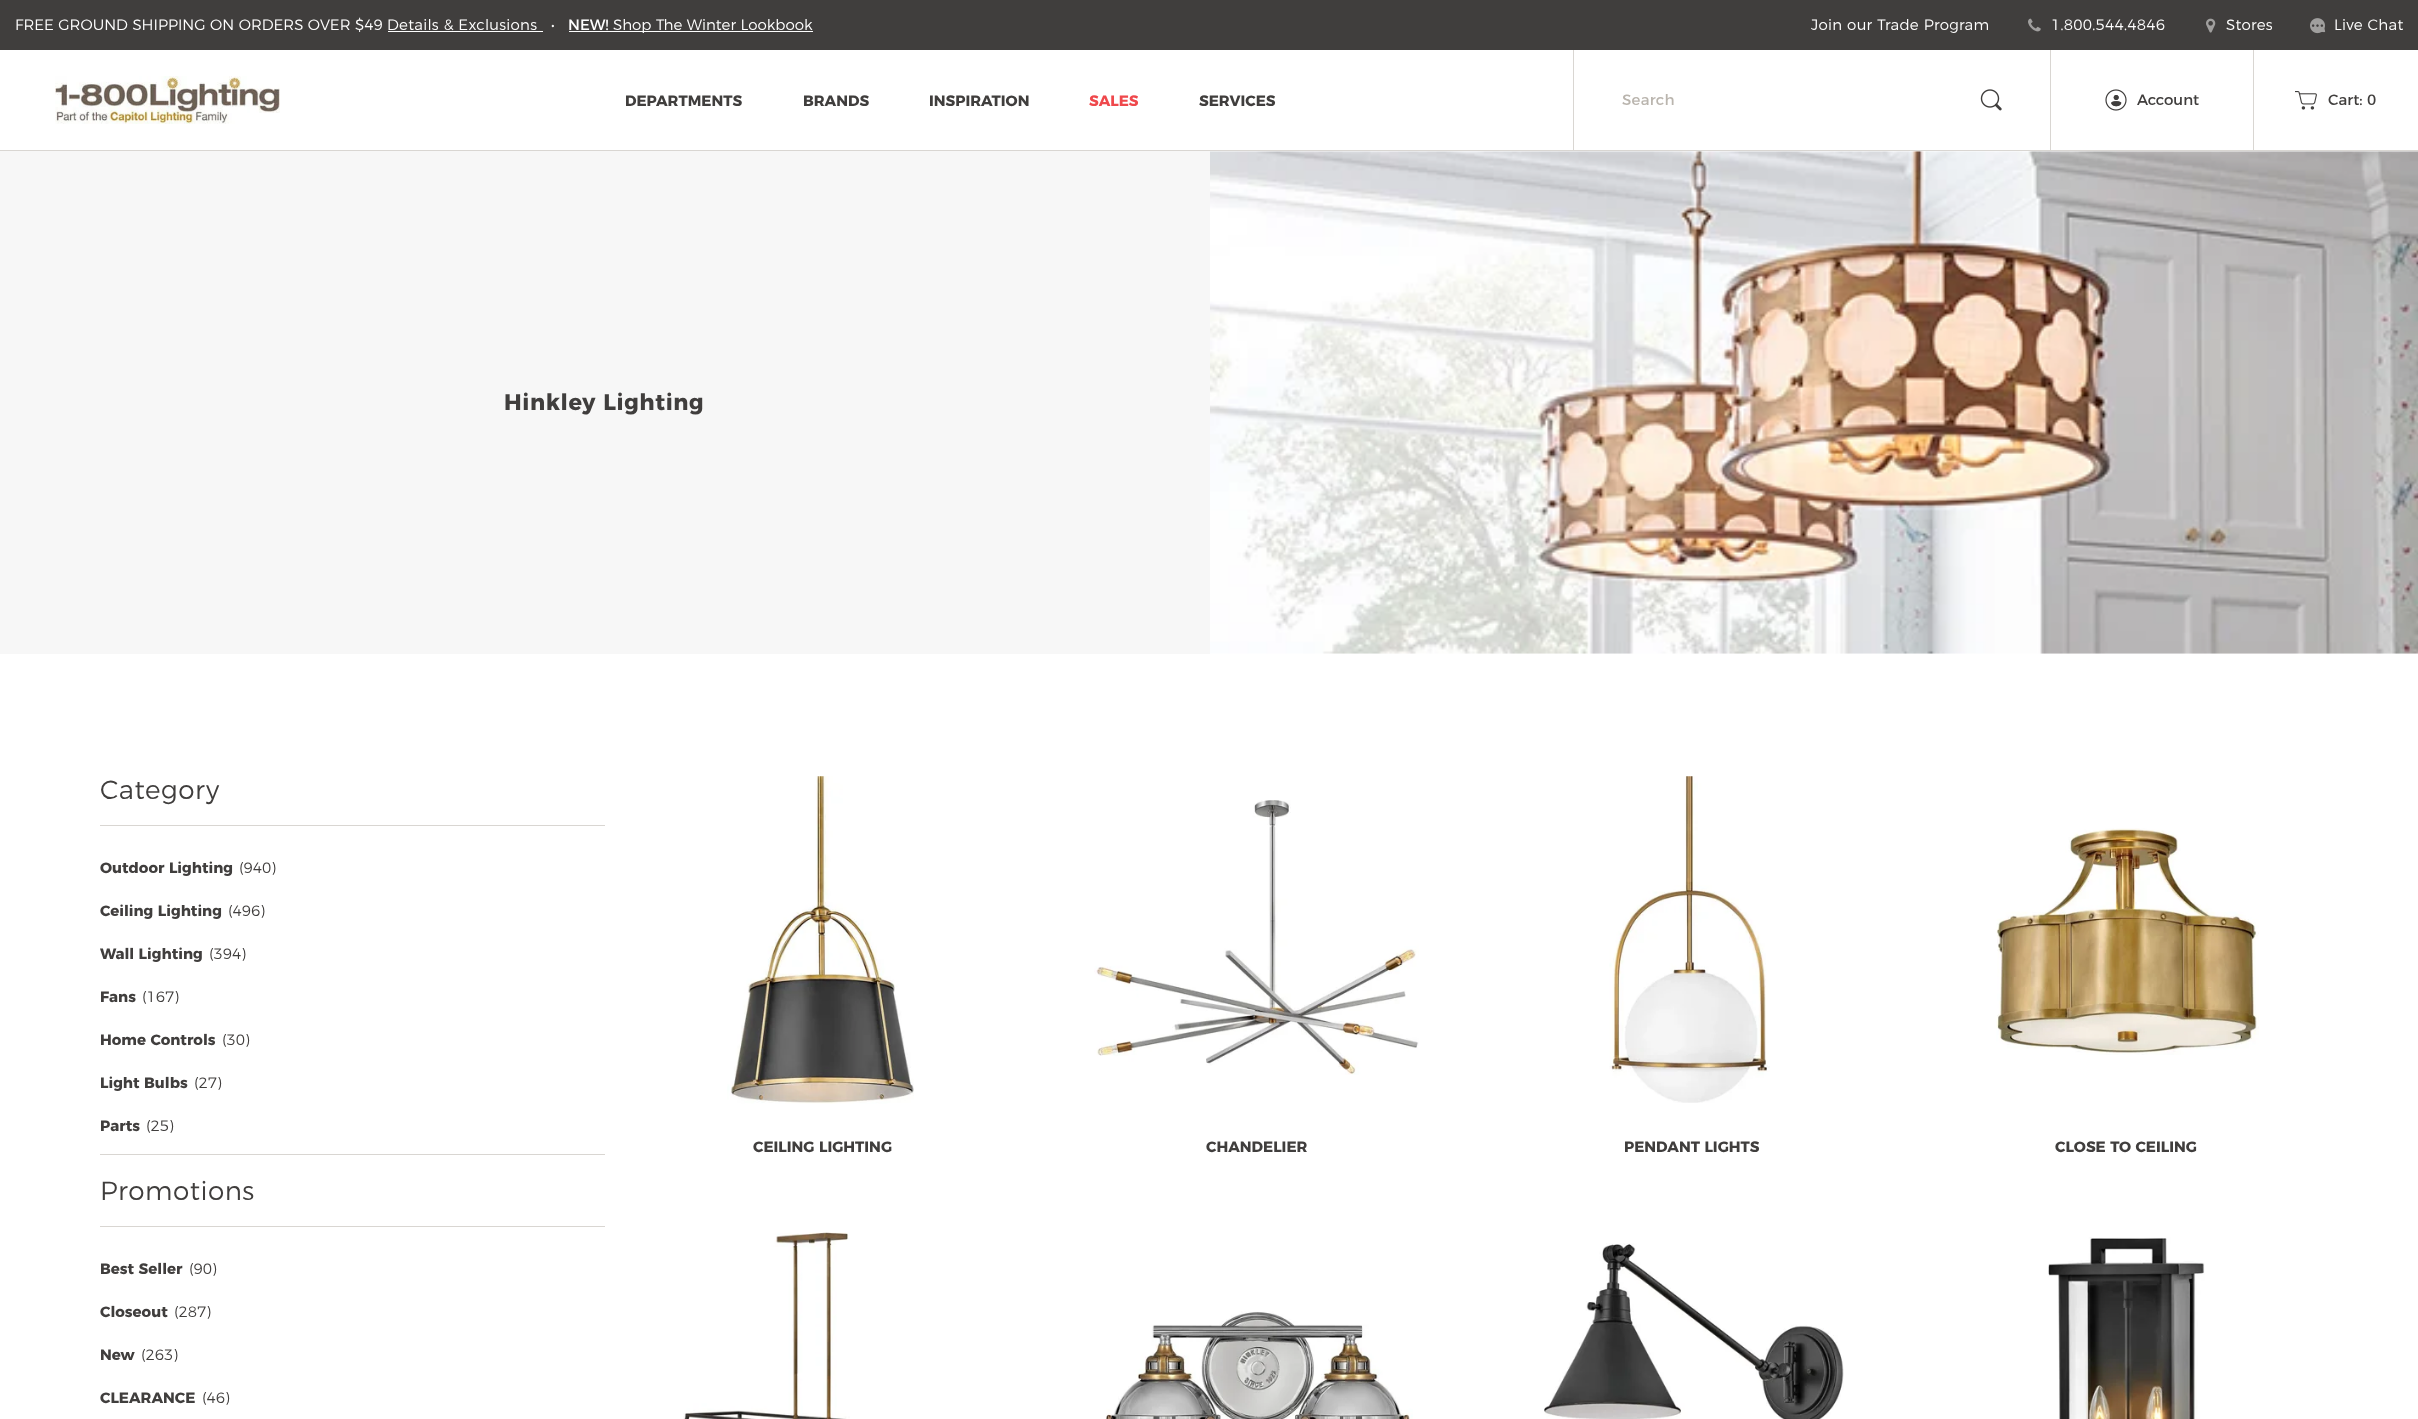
<svg xmlns="http://www.w3.org/2000/svg" width="2418" height="1419">
<rect width="100%" height="100%" fill="#fff"/>
<rect width="2418" height="50" fill="#403e3d"/>
<text x="15" y="30" style="font-family:Montserrat;font-size:15px;font-weight:300;fill:#fff">FREE GROUND SHIPPING ON ORDERS OVER $49</text>
<text x="387" y="30" style="font-family:Montserrat;font-size:15px;font-weight:300;letter-spacing:0.25px;fill:#fff">Details &amp; Exclusions</text>
<rect x="388" y="31" width="155" height="1" fill="#fff"/>
<text x="551" y="30" style="font-family:Montserrat;font-size:15px;font-weight:300;fill:#fff">•</text>
<text x="568" y="30" style="font-family:Montserrat;font-size:15px;fill:#fff">NEW!</text>
<rect x="569" y="31" width="244" height="1" fill="#fff"/>
<text x="613" y="30" style="font-family:Montserrat;font-size:15px;font-weight:300;fill:#fff">Shop The Winter Lookbook</text>
<text x="1811" y="30" style="font-family:Montserrat;font-size:15px;font-weight:300;letter-spacing:0.25px;fill:#fff">Join our Trade Program</text>
<image x="2028" y="18" width="13" height="14" href="media/1.png"/>
<text x="2051" y="30" style="font-family:Montserrat;font-size:15px;font-weight:300;letter-spacing:0.25px;fill:#fff">1.800.544.4846</text>
<image x="2206" y="18" width="10" height="15" href="media/2.png"/>
<text x="2226" y="30" style="font-family:Montserrat;font-size:15px;font-weight:300;letter-spacing:0.25px;fill:#fff">Stores</text>
<image x="2310" y="18" width="16" height="16" href="media/3.png"/>
<text x="2334" y="30" style="font-family:Montserrat;font-size:15px;font-weight:300;letter-spacing:0.25px;fill:#fff">Live Chat</text>
<rect y="150" width="2418" height="1" fill="#d9d6d2"/>
<image x="55" y="76" width="225" height="48" href="media/4.png"/>
<text x="625" y="106" style="font-family:Montserrat;font-size:15px;font-weight:bold;fill:#403e3d">DEPARTMENTS</text>
<text x="803" y="106" style="font-family:Montserrat;font-size:15px;font-weight:bold;fill:#403e3d">BRANDS</text>
<text x="929" y="106" style="font-family:Montserrat;font-size:15px;font-weight:bold;fill:#403e3d">INSPIRATION</text>
<text x="1089" y="106" style="font-family:Montserrat;font-size:15px;font-weight:bold;fill:#ef484c">SALES</text>
<text x="1199" y="106" style="font-family:Montserrat;font-size:15px;font-weight:bold;fill:#403e3d">SERVICES</text>
<rect x="1573" y="50" width="1" height="100" fill="#d9d6d2"/>
<text x="1622" y="105" style="font-family:Montserrat;font-size:15px;letter-spacing:0.25px;fill:#bab5ae">Search</text>
<image x="1980" y="89" width="22" height="22" href="media/5.png"/>
<rect x="2050" y="50" width="1" height="100" fill="#d9d6d2"/>
<image x="2105" y="89" width="22" height="22" href="media/6.png"/>
<text x="2137" y="105" style="font-family:Montserrat;font-size:15px;fill:#403e3d">Account</text>
<rect x="2253" y="50" width="1" height="100" fill="#d9d6d2"/>
<image x="2295" y="91" width="22" height="19" href="media/7.png"/>
<text x="2328" y="105" style="font-family:Montserrat;font-size:15px;fill:#403e3d">Cart: 0</text>
<rect y="151" width="1210" height="503" fill="#f7f7f7"/>
<text x="504" y="410" style="font-family:Montserrat;font-size:22.5px;font-weight:bold;letter-spacing:0.6px;fill:#403e3d">Hinkley Lighting</text>
<image x="1210" y="151" width="1208" height="503" href="media/8.png"/>
<rect x="100" y="825" width="505" height="1" fill="#d9d6d2"/>
<text x="100" y="799" style="font-family:Montserrat;font-size:26.25px;font-weight:300;letter-spacing:0.5px;fill:#403e3d">Category</text>
<rect x="100" y="1154" width="505" height="1" fill="#d9d6d2"/>
<text x="100" y="873" style="font-family:Montserrat;font-size:15px;font-weight:bold;fill:#403e3d">Outdoor Lighting</text>
<text x="239" y="873" style="font-family:Montserrat;font-size:15px;font-weight:300;fill:#403e3d">(940)</text>
<text x="100" y="916" style="font-family:Montserrat;font-size:15px;font-weight:bold;fill:#403e3d">Ceiling Lighting</text>
<text x="228" y="916" style="font-family:Montserrat;font-size:15px;font-weight:300;fill:#403e3d">(496)</text>
<text x="100" y="959" style="font-family:Montserrat;font-size:15px;font-weight:bold;fill:#403e3d">Wall Lighting</text>
<text x="209" y="959" style="font-family:Montserrat;font-size:15px;font-weight:300;fill:#403e3d">(394)</text>
<text x="100" y="1002" style="font-family:Montserrat;font-size:15px;font-weight:bold;fill:#403e3d">Fans</text>
<text x="142" y="1002" style="font-family:Montserrat;font-size:15px;font-weight:300;fill:#403e3d">(167)</text>
<text x="100" y="1045" style="font-family:Montserrat;font-size:15px;font-weight:bold;fill:#403e3d">Home Controls</text>
<text x="222" y="1045" style="font-family:Montserrat;font-size:15px;font-weight:300;fill:#403e3d">(30)</text>
<text x="100" y="1088" style="font-family:Montserrat;font-size:15px;font-weight:bold;fill:#403e3d">Light Bulbs</text>
<text x="194" y="1088" style="font-family:Montserrat;font-size:15px;font-weight:300;fill:#403e3d">(27)</text>
<text x="100" y="1131" style="font-family:Montserrat;font-size:15px;font-weight:bold;fill:#403e3d">Parts</text>
<text x="146" y="1131" style="font-family:Montserrat;font-size:15px;font-weight:300;fill:#403e3d">(25)</text>
<rect x="100" y="1226" width="505" height="1" fill="#d9d6d2"/>
<text x="100" y="1200" style="font-family:Montserrat;font-size:26.25px;font-weight:300;letter-spacing:0.5px;fill:#403e3d">Promotions</text>
<text x="100" y="1274" style="font-family:Montserrat;font-size:15px;font-weight:bold;fill:#403e3d">Best Seller</text>
<text x="189" y="1274" style="font-family:Montserrat;font-size:15px;font-weight:300;fill:#403e3d">(90)</text>
<text x="100" y="1317" style="font-family:Montserrat;font-size:15px;font-weight:bold;fill:#403e3d">Closeout</text>
<text x="174" y="1317" style="font-family:Montserrat;font-size:15px;font-weight:300;fill:#403e3d">(287)</text>
<text x="100" y="1360" style="font-family:Montserrat;font-size:15px;font-weight:bold;fill:#403e3d">New</text>
<text x="141" y="1360" style="font-family:Montserrat;font-size:15px;font-weight:300;fill:#403e3d">(263)</text>
<text x="100" y="1403" style="font-family:Montserrat;font-size:15px;font-weight:bold;fill:#403e3d">CLEARANCE</text>
<text x="202" y="1403" style="font-family:Montserrat;font-size:15px;font-weight:300;fill:#403e3d">(46)</text>
<image x="727" y="776" width="187" height="328" href="media/9.png"/>
<text x="753" y="1152" style="font-family:Montserrat;font-size:15px;font-weight:bold;fill:#403e3d">CEILING LIGHTING</text>
<image x="1094" y="800" width="325" height="275" href="media/10.png"/>
<text x="1206" y="1152" style="font-family:Montserrat;font-size:15px;font-weight:bold;fill:#403e3d">CHANDELIER</text>
<image x="1609" y="776" width="161" height="327" href="media/11.png"/>
<text x="1624" y="1152" style="font-family:Montserrat;font-size:15px;font-weight:bold;fill:#403e3d">PENDANT LIGHTS</text>
<image x="1996" y="828" width="263" height="227" href="media/12.png"/>
<text x="2055" y="1152" style="font-family:Montserrat;font-size:15px;font-weight:bold;fill:#403e3d">CLOSE TO CEILING</text>
<image x="683" y="1232" width="167" height="187" href="media/13.png"/>
<image x="1106" y="1311" width="307" height="108" href="media/14.png"/>
<image x="1544" y="1243" width="300" height="176" href="media/15.png"/>
<image x="2048" y="1237" width="157" height="182" href="media/16.png"/>
</svg>
